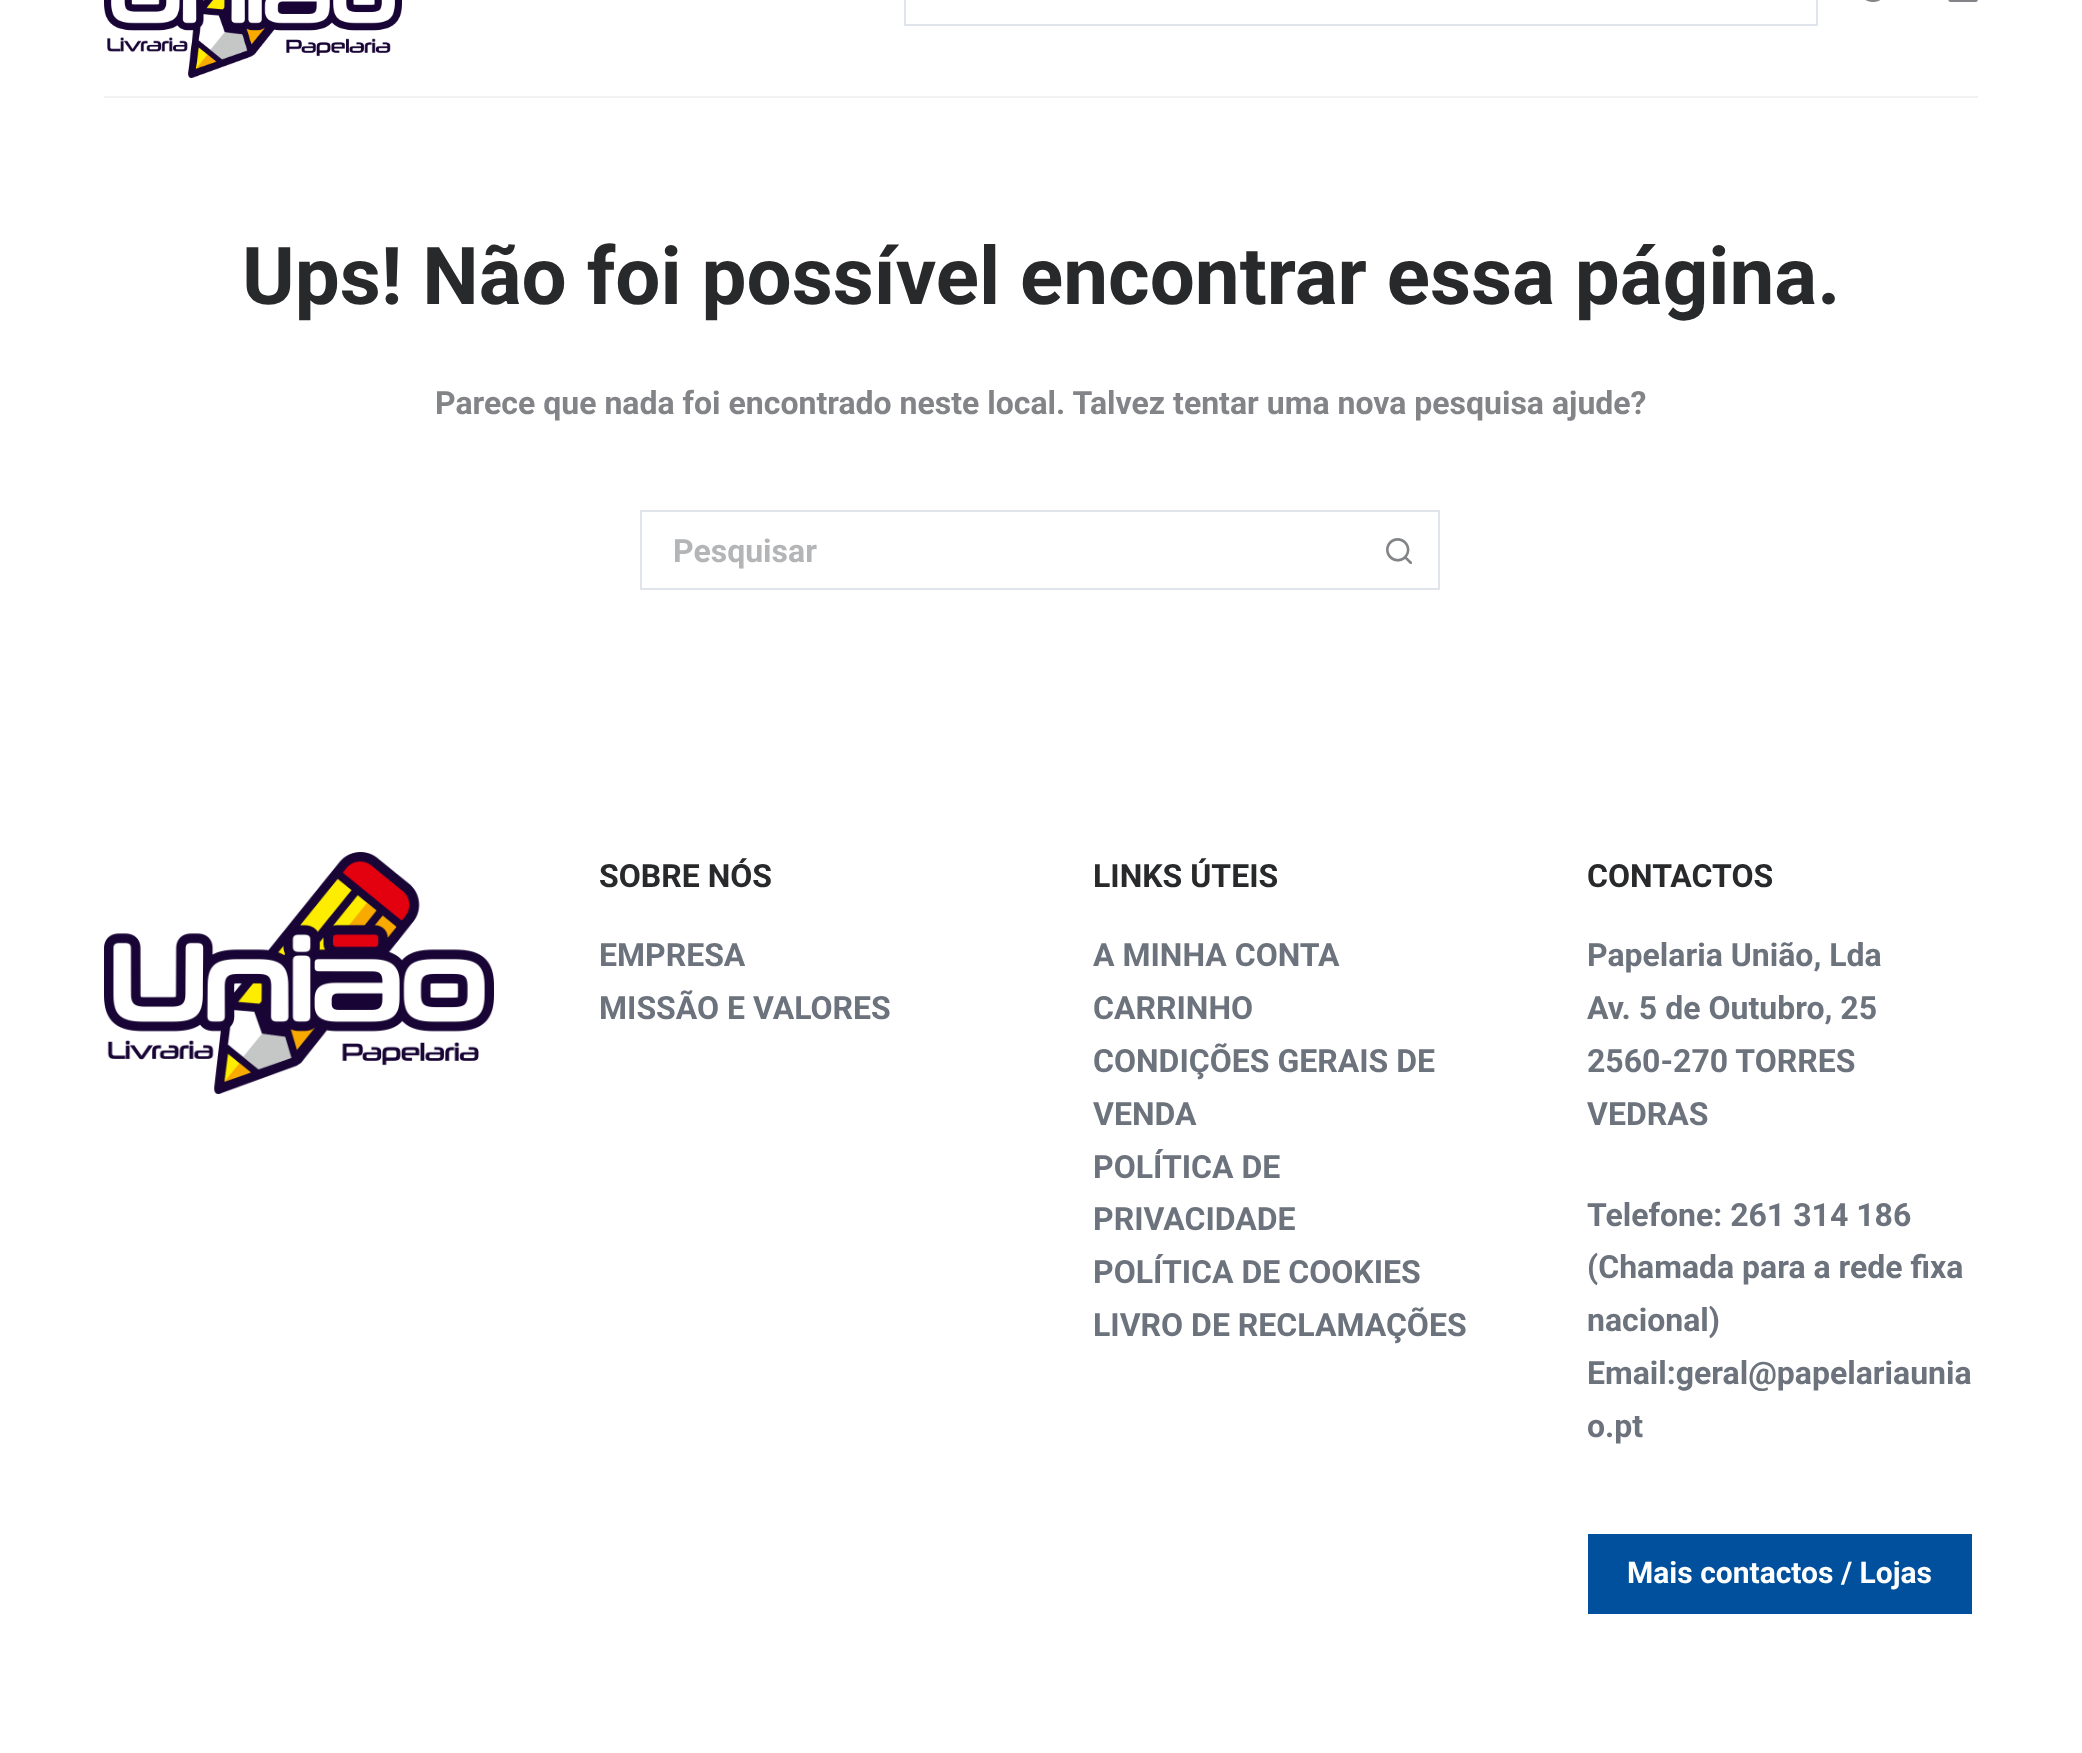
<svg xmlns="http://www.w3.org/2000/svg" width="2082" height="1753">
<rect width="100%" height="100%" fill="#fff"/>
<rect x="104" y="96" width="1874" height="2" fill="#f2f2f2"/>
<image x="104" y="0" width="298" height="78" href="media/1.png"/>
<rect x="905" y="-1" width="912" height="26" fill="none" stroke="#e0e5eb" stroke-width="2"/>
<image x="1865" y="0" width="16" height="2" href="media/2.png"/>
<image x="1948" y="0" width="30" height="2" href="media/3.png"/>
<text x="242" y="304" style="font-family:Roboto;font-size:80px;font-weight:bold;fill:#28292a">Ups! Não foi possível encontrar essa página.</text>
<text x="435" y="414" style="font-family:Roboto;font-size:32px;font-weight:bold;fill:#828487">Parece que nada foi encontrado neste local. Talvez tentar uma nova pesquisa ajude?</text>
<rect x="640" y="510" width="800" height="2" fill="#e0e5eb"/>
<rect x="640" y="588" width="720" height="2" fill="#e0e5eb"/>
<rect x="640" y="510" width="2" height="80" fill="#e0e5eb"/>
<text x="673" y="562" style="font-family:Roboto;font-size:32px;font-weight:bold;fill:#b4b5b7">Pesquisar</text>
<rect x="1438" y="510" width="2" height="80" fill="#e0e5eb"/>
<rect x="1360" y="588" width="80" height="2" fill="#e0e5eb"/>
<image x="1386" y="538" width="26" height="26" href="media/4.png"/>
<image x="104" y="852" width="390" height="242" href="media/5.png"/>
<text x="599" y="887" style="font-family:Roboto;font-size:32px;font-weight:bold;fill:#28292a">SOBRE NÓS</text>
<text x="599" y="966" style="font-family:Roboto;font-size:32px;font-weight:bold;fill:#6c737d">EMPRESA</text>
<text x="599" y="1019" style="font-family:Roboto;font-size:32px;font-weight:bold;fill:#6c737d">MISSÃO E VALORES</text>
<text x="1093" y="887" style="font-family:Roboto;font-size:32px;font-weight:bold;fill:#28292a">LINKS ÚTEIS</text>
<text x="1093" y="966" style="font-family:Roboto;font-size:32px;font-weight:bold;fill:#6c737d">A MINHA CONTA</text>
<text x="1093" y="1019" style="font-family:Roboto;font-size:32px;font-weight:bold;fill:#6c737d">CARRINHO</text>
<text x="1093" y="1072" style="font-family:Roboto;font-size:32px;font-weight:bold;fill:#6c737d">CONDIÇÕES GERAIS DE</text>
<text x="1093" y="1125" style="font-family:Roboto;font-size:32px;font-weight:bold;fill:#6c737d">VENDA</text>
<text x="1093" y="1178" style="font-family:Roboto;font-size:32px;font-weight:bold;fill:#6c737d">POLÍTICA DE</text>
<text x="1093" y="1230" style="font-family:Roboto;font-size:32px;font-weight:bold;fill:#6c737d">PRIVACIDADE</text>
<text x="1093" y="1283" style="font-family:Roboto;font-size:32px;font-weight:bold;fill:#6c737d">POLÍTICA DE COOKIES</text>
<text x="1093" y="1336" style="font-family:Roboto;font-size:32px;font-weight:bold;fill:#6c737d">LIVRO DE RECLAMAÇÕES</text>
<text x="1587" y="887" style="font-family:Roboto;font-size:32px;font-weight:bold;fill:#28292a">CONTACTOS</text>
<text x="1587" y="966" style="font-family:Roboto;font-size:32px;font-weight:bold;fill:#6c737d">Papelaria União, Lda</text>
<text x="1587" y="1019" style="font-family:Roboto;font-size:32px;font-weight:bold;fill:#6c737d">Av. 5 de Outubro, 25</text>
<text x="1587" y="1072" style="font-family:Roboto;font-size:32px;font-weight:bold;fill:#6c737d">2560-270 TORRES</text>
<text x="1587" y="1125" style="font-family:Roboto;font-size:32px;font-weight:bold;fill:#6c737d">VEDRAS</text>
<text x="1587" y="1226" style="font-family:Roboto;font-size:32px;font-weight:bold;fill:#6c737d">Telefone: 261 314 186</text>
<text x="1587" y="1278" style="font-family:Roboto;font-size:32px;font-weight:bold;fill:#6c737d">(Chamada para a rede fixa</text>
<text x="1587" y="1331" style="font-family:Roboto;font-size:32px;font-weight:bold;fill:#6c737d">nacional)</text>
<text x="1587" y="1384" style="font-family:Roboto;font-size:32px;font-weight:bold;fill:#6c737d">Email:geral@papelariaunia</text>
<text x="1587" y="1437" style="font-family:Roboto;font-size:32px;font-weight:bold;fill:#6c737d">o.pt</text>
<rect x="1588" y="1534" width="384" height="80" fill="#00509d"/>
<text x="1627" y="1583" style="font-family:Roboto;font-size:30px;font-weight:bold;fill:#fff">Mais contactos / Lojas</text>
</svg>
